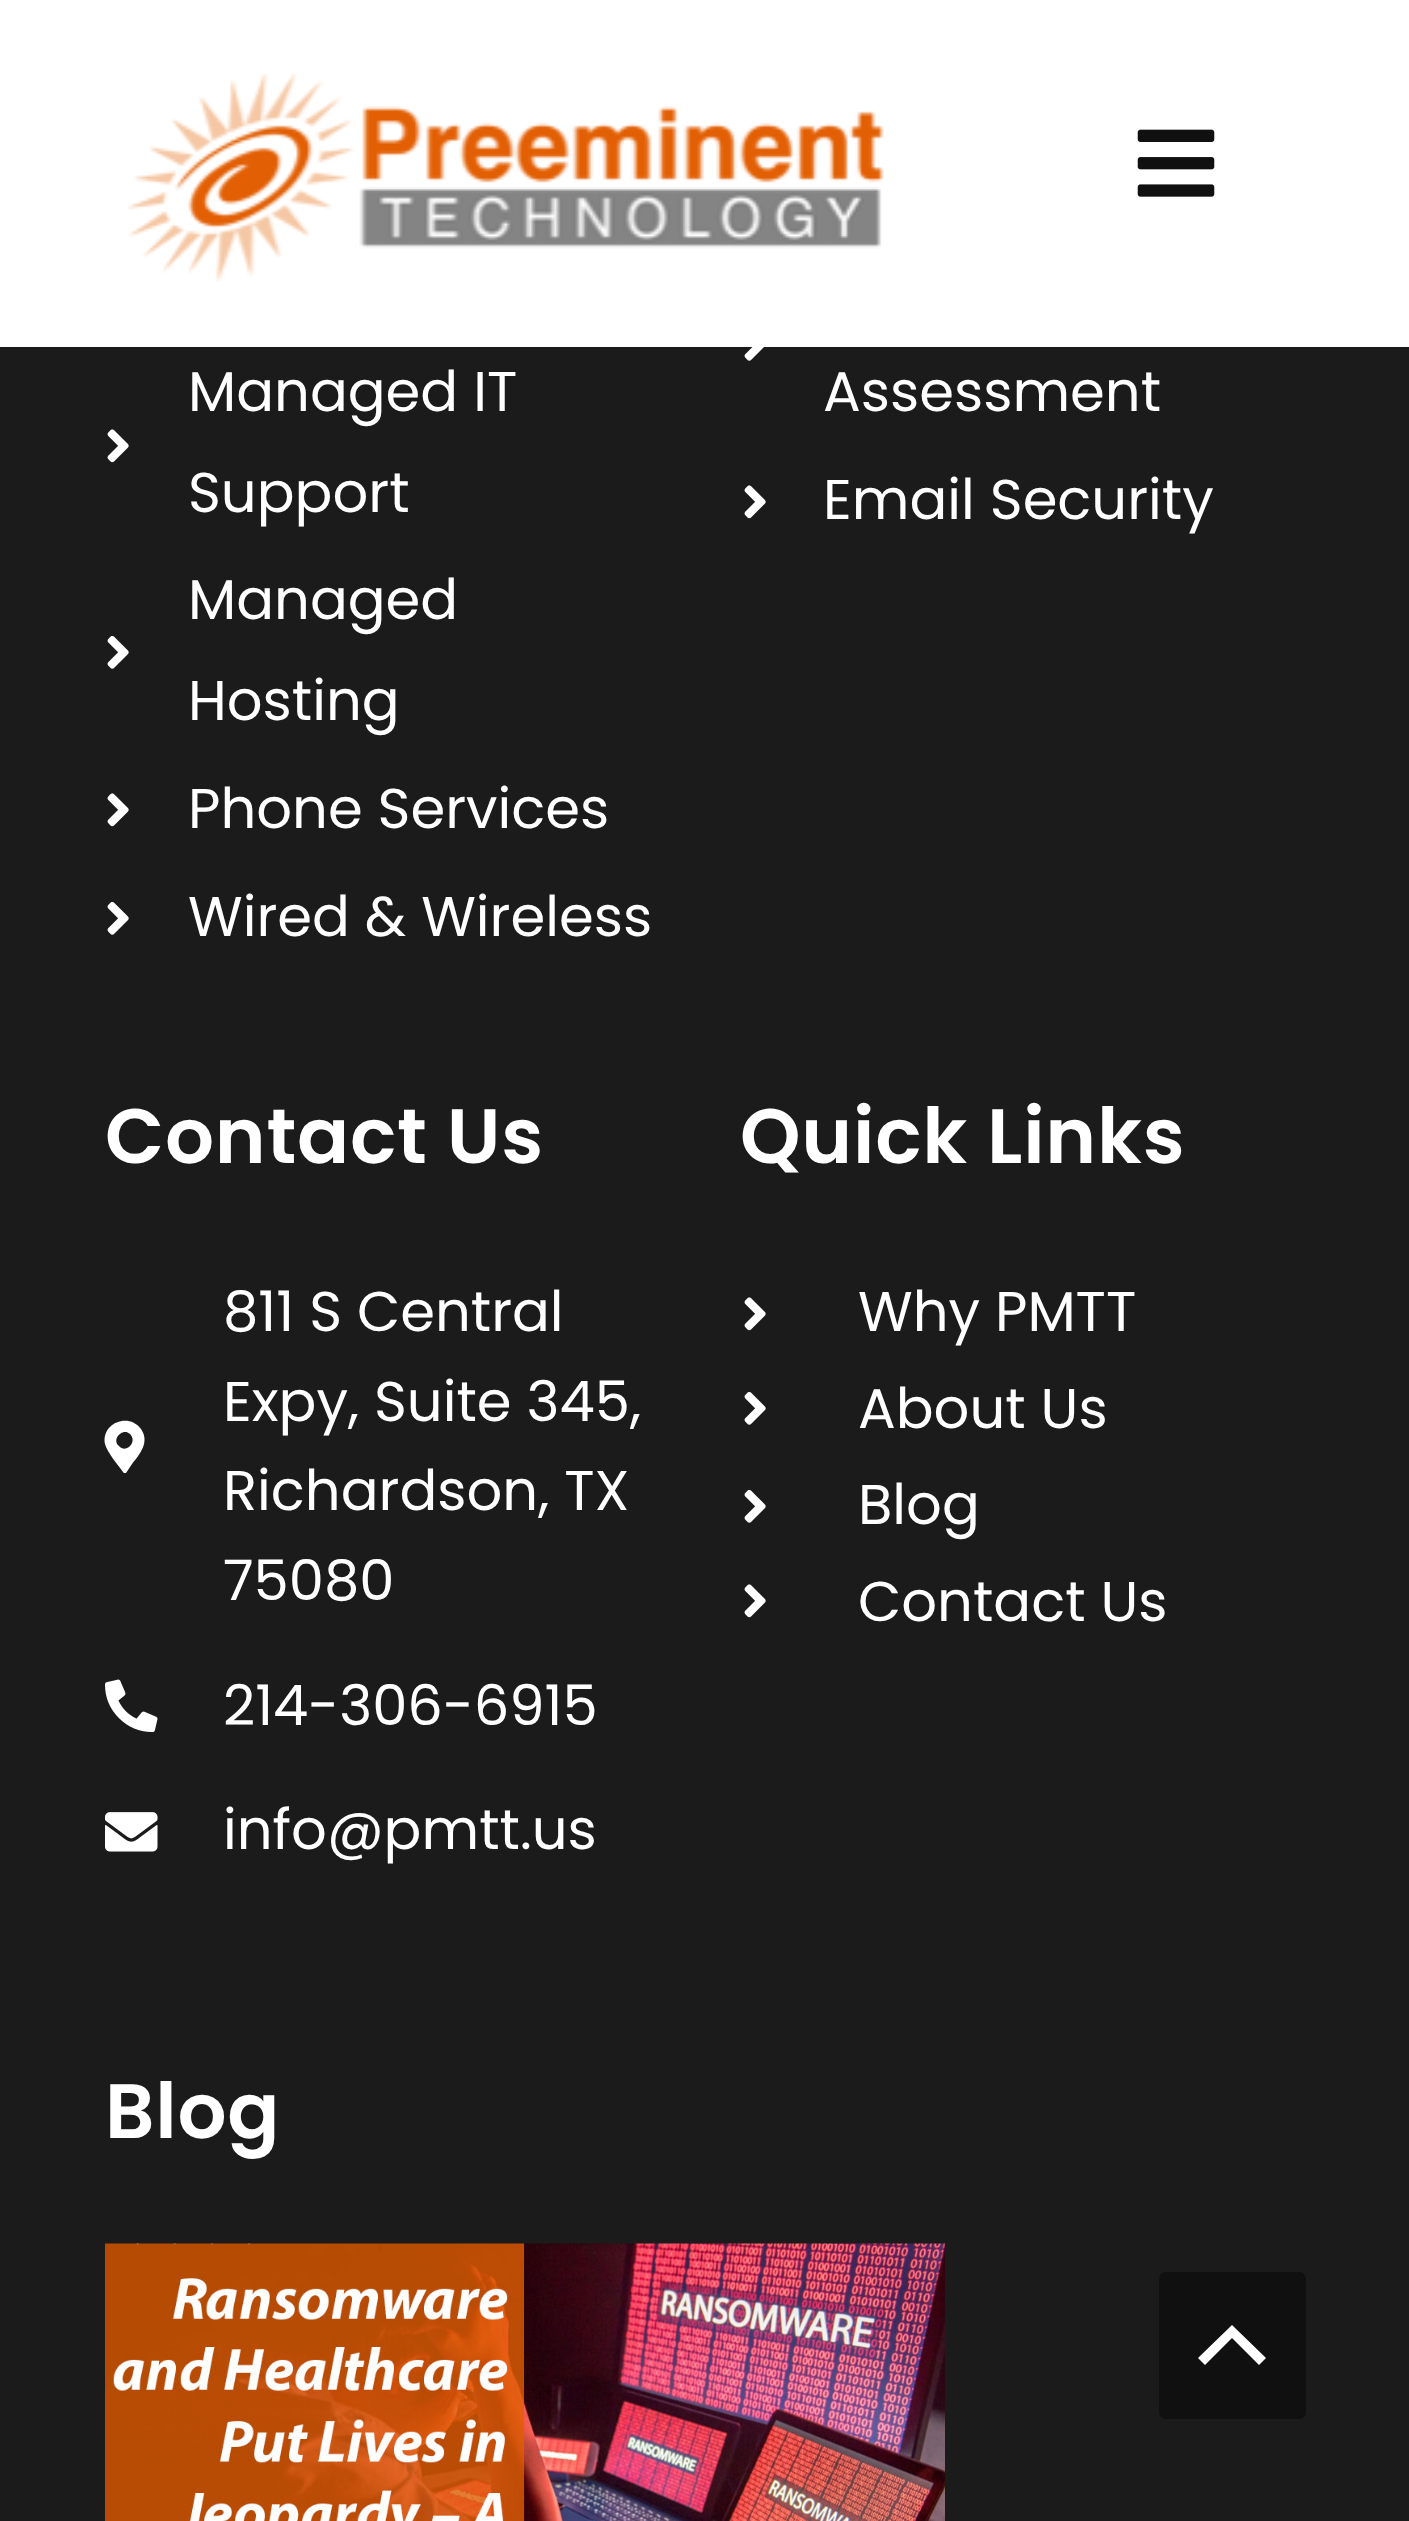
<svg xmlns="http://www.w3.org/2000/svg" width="1409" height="2521">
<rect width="100%" height="100%" fill="#1b1b1b"/>
<rect width="1409" height="347" fill="#fff"/>
<image x="127" y="73" width="757" height="209" href="media/1.png"/>
<image x="1137" y="129" width="78" height="68" href="media/2.png"/>
<image x="107" y="429" width="22" height="34" href="media/3.png"/>
<text x="188" y="411" style="font-family:Poppins;font-size:56px;fill:#fff">Managed IT</text>
<text x="188" y="512" style="font-family:Poppins;font-size:56px;fill:#fff">Support</text>
<image x="107" y="635" width="22" height="34" href="media/4.png"/>
<text x="188" y="619" style="font-family:Poppins;font-size:56px;fill:#fff">Managed</text>
<text x="188" y="720" style="font-family:Poppins;font-size:56px;fill:#fff">Hosting</text>
<image x="107" y="793" width="22" height="34" href="media/3.png"/>
<text x="188" y="828" style="font-family:Poppins;font-size:56px;fill:#fff">Phone Services</text>
<image x="107" y="901" width="22" height="34" href="media/4.png"/>
<text x="188" y="936" style="font-family:Poppins;font-size:56px;fill:#fff">Wired &amp; Wireless</text>
<image x="744" y="347" width="20" height="14" href="media/5.png"/>
<text x="823" y="411" style="font-family:Poppins;font-size:56px;fill:#fff">Assessment</text>
<image x="744" y="485" width="22" height="34" href="media/3.png"/>
<text x="823" y="519" style="font-family:Poppins;font-size:56px;fill:#fff">Email Security</text>
<text x="105" y="1163" style="font-family:Poppins;font-size:77px;font-weight:600;letter-spacing:0.75px;fill:#fff">Contact Us</text>
<path d="M123 1472c-5-7-16-20-18-28c-4-21 24-32 36-15c9 13-1 25-9 35l-6 9c-1 0-3 0-3-1zm-4-26c7 8 19-4 11-12c-7-7-19 5-11 12z" fill="#fff"/>
<text x="223" y="1331" style="font-family:Poppins;font-size:56px;fill:#fff">811 S Central</text>
<text x="223" y="1421" style="font-family:Poppins;font-size:56px;fill:#fff">Expy, Suite 345,</text>
<text x="223" y="1510" style="font-family:Poppins;font-size:56px;fill:#fff">Richardson, TX</text>
<text x="223" y="1600" style="font-family:Poppins;font-size:56px;fill:#fff">75080</text>
<image x="105" y="1679" width="53" height="54" href="media/6.png"/>
<text x="223" y="1725" style="font-family:Poppins;font-size:56px;fill:#fff">214-306-6915</text>
<image x="105" y="1812" width="53" height="40" href="media/7.png"/>
<text x="223" y="1849" style="font-family:Poppins;font-size:56px;fill:#fff">info@pmtt.us</text>
<text x="740" y="1163" style="font-family:Poppins;font-size:77px;font-weight:600;letter-spacing:0.75px;fill:#fff">Quick Links</text>
<image x="744" y="1297" width="22" height="34" href="media/3.png"/>
<text x="858" y="1331" style="font-family:Poppins;font-size:56px;fill:#fff">Why PMTT</text>
<image x="744" y="1391" width="22" height="34" href="media/4.png"/>
<text x="858" y="1428" style="font-family:Poppins;font-size:56px;fill:#fff">About Us</text>
<image x="744" y="1489" width="22" height="34" href="media/4.png"/>
<text x="858" y="1524" style="font-family:Poppins;font-size:56px;fill:#fff">Blog</text>
<image x="744" y="1584" width="22" height="34" href="media/3.png"/>
<text x="858" y="1621" style="font-family:Poppins;font-size:56px;fill:#fff">Contact Us</text>
<text x="105" y="2138" style="font-family:Poppins;font-size:77px;font-weight:600;letter-spacing:0.75px;fill:#fff">Blog</text>
<image x="105" y="2243" width="840" height="278" href="media/8.png"/>
<rect x="1159" y="2272" width="147" height="147" rx="7" fill="#101010"/>
<path d="M1266 2358l-34-33l-34 33l7 7l27-27l27 27z" fill="#fff"/>
</svg>
